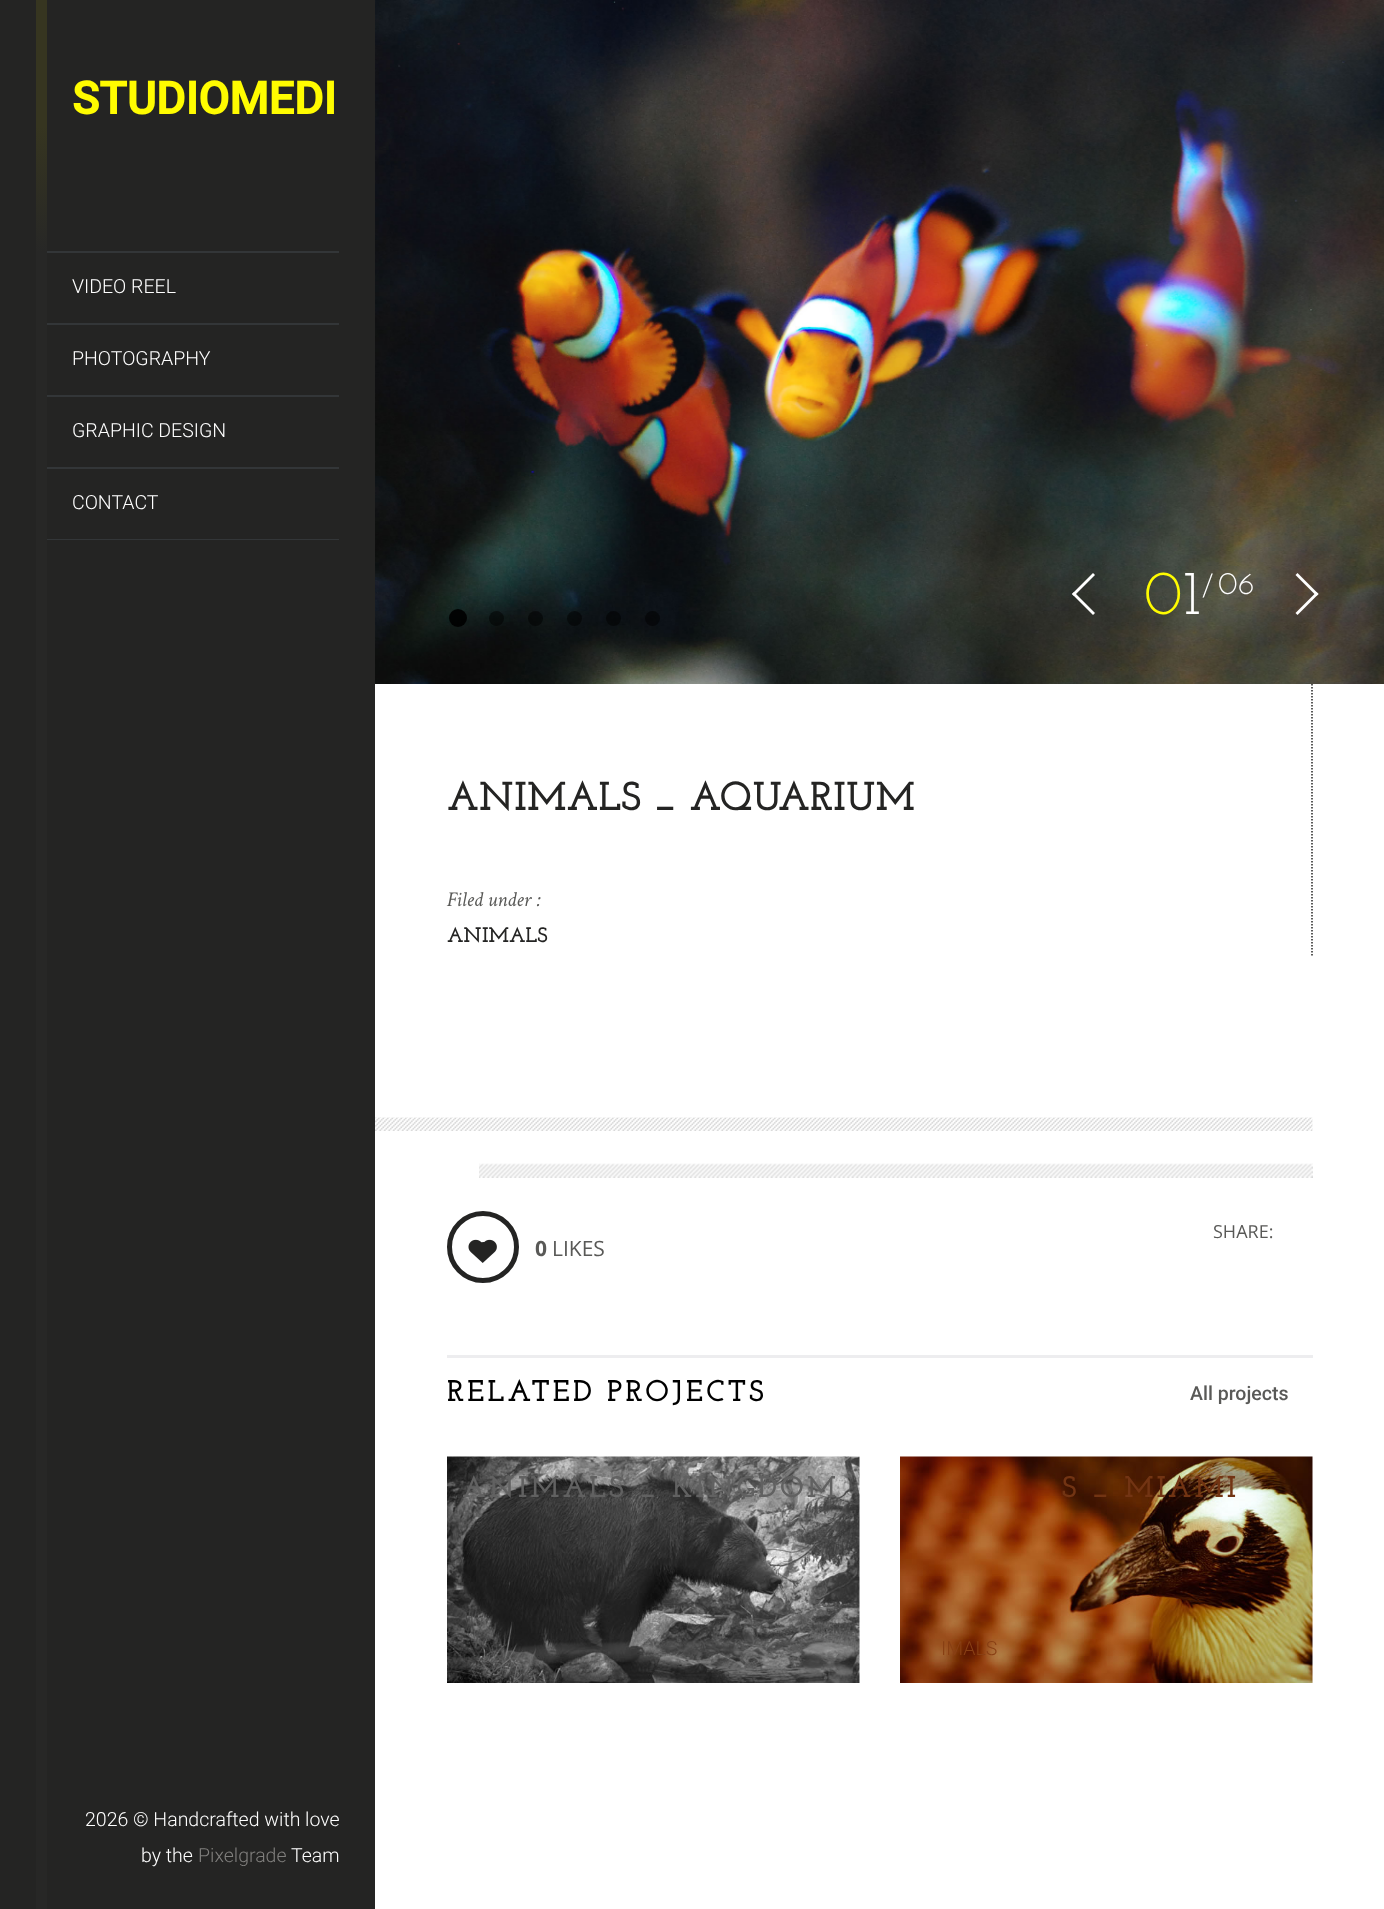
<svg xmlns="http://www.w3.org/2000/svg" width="1384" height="1909">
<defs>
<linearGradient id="g1" gradientUnits="userSpaceOnUse" x1="37" y1="0" x2="37" y2="252"><stop offset="0.5" stop-color="#363520"/><stop offset="1" stop-color="#272726"/></linearGradient>
</defs>
<rect width="100%" height="100%" fill="#fff"/>
<rect width="375" height="1909" fill="#242423"/>
<rect x="36" y="252" width="11" height="1657" fill="#272726"/>
<rect x="36" width="11" height="252" fill="url(#g1)"/>
<text x="72" y="114" style="font-family:Roboto;font-size:45px;font-weight:bold;fill:#fffc00">STUDIOMEDI</text>
<rect x="47" y="251" width="292" height="2" fill="#333638"/>
<rect x="47" y="323" width="292" height="2" fill="#333638"/>
<text x="72" y="293" style="font-family:Roboto;font-size:19.5px;font-weight:300;fill:#fff">VIDEO REEL</text>
<rect x="47" y="395" width="292" height="2" fill="#333638"/>
<text x="72" y="365" style="font-family:Roboto;font-size:19.5px;font-weight:300;fill:#fff">PHOTOGRAPHY</text>
<rect x="47" y="467" width="292" height="2" fill="#333638"/>
<text x="72" y="437" style="font-family:Roboto;font-size:19.5px;font-weight:300;fill:#fff">GRAPHIC DESIGN</text>
<rect x="47" y="539" width="292" height="1" fill="#333638"/>
<text x="72" y="509" style="font-family:Roboto;font-size:19.5px;font-weight:300;fill:#fff">CONTACT</text>
<text x="85" y="1826" style="font-family:Roboto;font-size:19.5px;font-weight:300;fill:#fff">2026 © Handcrafted with love</text>
<text x="141" y="1862" style="font-family:Roboto;font-size:19.5px;font-weight:300;fill:#fff">by the</text>
<text x="198" y="1862" style="font-family:Roboto;font-size:19.5px;font-weight:300;fill:#807f7d">Pixelgrade</text>
<text x="291" y="1862" style="font-family:Roboto;font-size:19.5px;font-weight:300;fill:#fff">Team</text>
<image x="375" y="0" width="1009" height="684" href="media/1.png"/>
<circle cx="458" cy="618" r="9" fill="#000000e6"/>
<circle cx="496.5" cy="618.5" r="7.5" fill="#00000080"/>
<circle cx="535.5" cy="618.5" r="7.5" fill="#00000080"/>
<circle cx="574.5" cy="618.5" r="7.5" fill="#00000080"/>
<circle cx="613.5" cy="618.5" r="7.5" fill="#00000080"/>
<circle cx="652.5" cy="618.5" r="7.5" fill="#00000080"/>
<path d="M1074 592l21 21l-2 2l-21-21z" fill="#fff"/>
<path d="M1093 573l2 2l-21 21l-2-2z" fill="#fff"/>
<text x="1144" y="614" style="font-family:Josefin Slab;font-size:63px;fill:#fffc00">0</text>
<text x="1183" y="614" style="font-family:Josefin Slab;font-size:63px;fill:#fff">1</text>
<text x="1202" y="597" style="font-family:Josefin Slab;font-size:32px;fill:#fff">/</text>
<text x="1218" y="594" style="font-family:Josefin Slab;font-size:32px;fill:#fff">06</text>
<path d="M1295.5 575l2-2l21 21l-2 2z" fill="#fff"/>
<path d="M1295.5 613l21-21l2 2l-21 21z" fill="#fff"/>
<path d="M1312 684v271.5" fill="none" stroke="#242423" stroke-width="1.5" stroke-dasharray="1.5 1.5"/>
<text x="447" y="810" style="font-family:Josefin Slab;font-size:40.5px;font-weight:bold;fill:#242423">ANIMALS _ AQUARIUM</text>
<text x="447" y="906" style="font-family:Crimson Text;font-size:21px;font-style:italic;fill:#595957">Filed under :</text>
<text x="447" y="942" style="font-family:Josefin Slab;font-size:21px;font-weight:bold;fill:#242423">ANIMALS</text>
<image x="375" y="1117" width="938" height="14" href="media/2.png"/>
<image x="479" y="1163" width="834" height="15" href="media/3.png"/>
<text x="1213" y="1238" style="font-family:Open Sans;font-size:18px;fill:#595957">SHARE:</text>
<circle cx="483" cy="1247" r="33.5" fill="none" stroke="#242423" stroke-width="5"/>
<circle cx="483.5" cy="1246.5" r="4.5" fill="#242423"/>
<image x="468" y="1239" width="29" height="24" href="media/4.png"/>
<text x="535" y="1256" style="font-family:Open Sans;font-size:21px;font-weight:bold;fill:#595957">0</text>
<text x="552" y="1256" style="font-family:Open Sans;font-size:21px;fill:#595957">LIKES</text>
<rect x="447" y="1355" width="866" height="3" fill="#ededef"/>
<text x="447" y="1401" style="font-family:Josefin Slab;font-size:30px;font-weight:bold;letter-spacing:3px;fill:#000">RELATED PROJECTS</text>
<text x="1190" y="1400" style="font-family:Roboto;font-size:19.5px;font-weight:500;fill:#595957">All projects</text>
<image x="447" y="1456" width="413" height="227" href="media/5.png"/>
<text x="462" y="1497" style="font-family:Josefin Slab;font-size:30px;font-weight:bold;letter-spacing:3px;fill:#616161">ANIMALS _ KINGDOM</text>
<image x="900" y="1456" width="413" height="227" href="media/6.png"/>
<text x="1062" y="1497" style="font-family:Josefin Slab;font-size:30px;font-weight:bold;letter-spacing:3px;fill:#723413">S _ MIAMI</text>
<text x="941" y="1655" style="font-family:Roboto;font-size:19.5px;font-weight:300;fill:#883f14">IMALS</text>
</svg>
